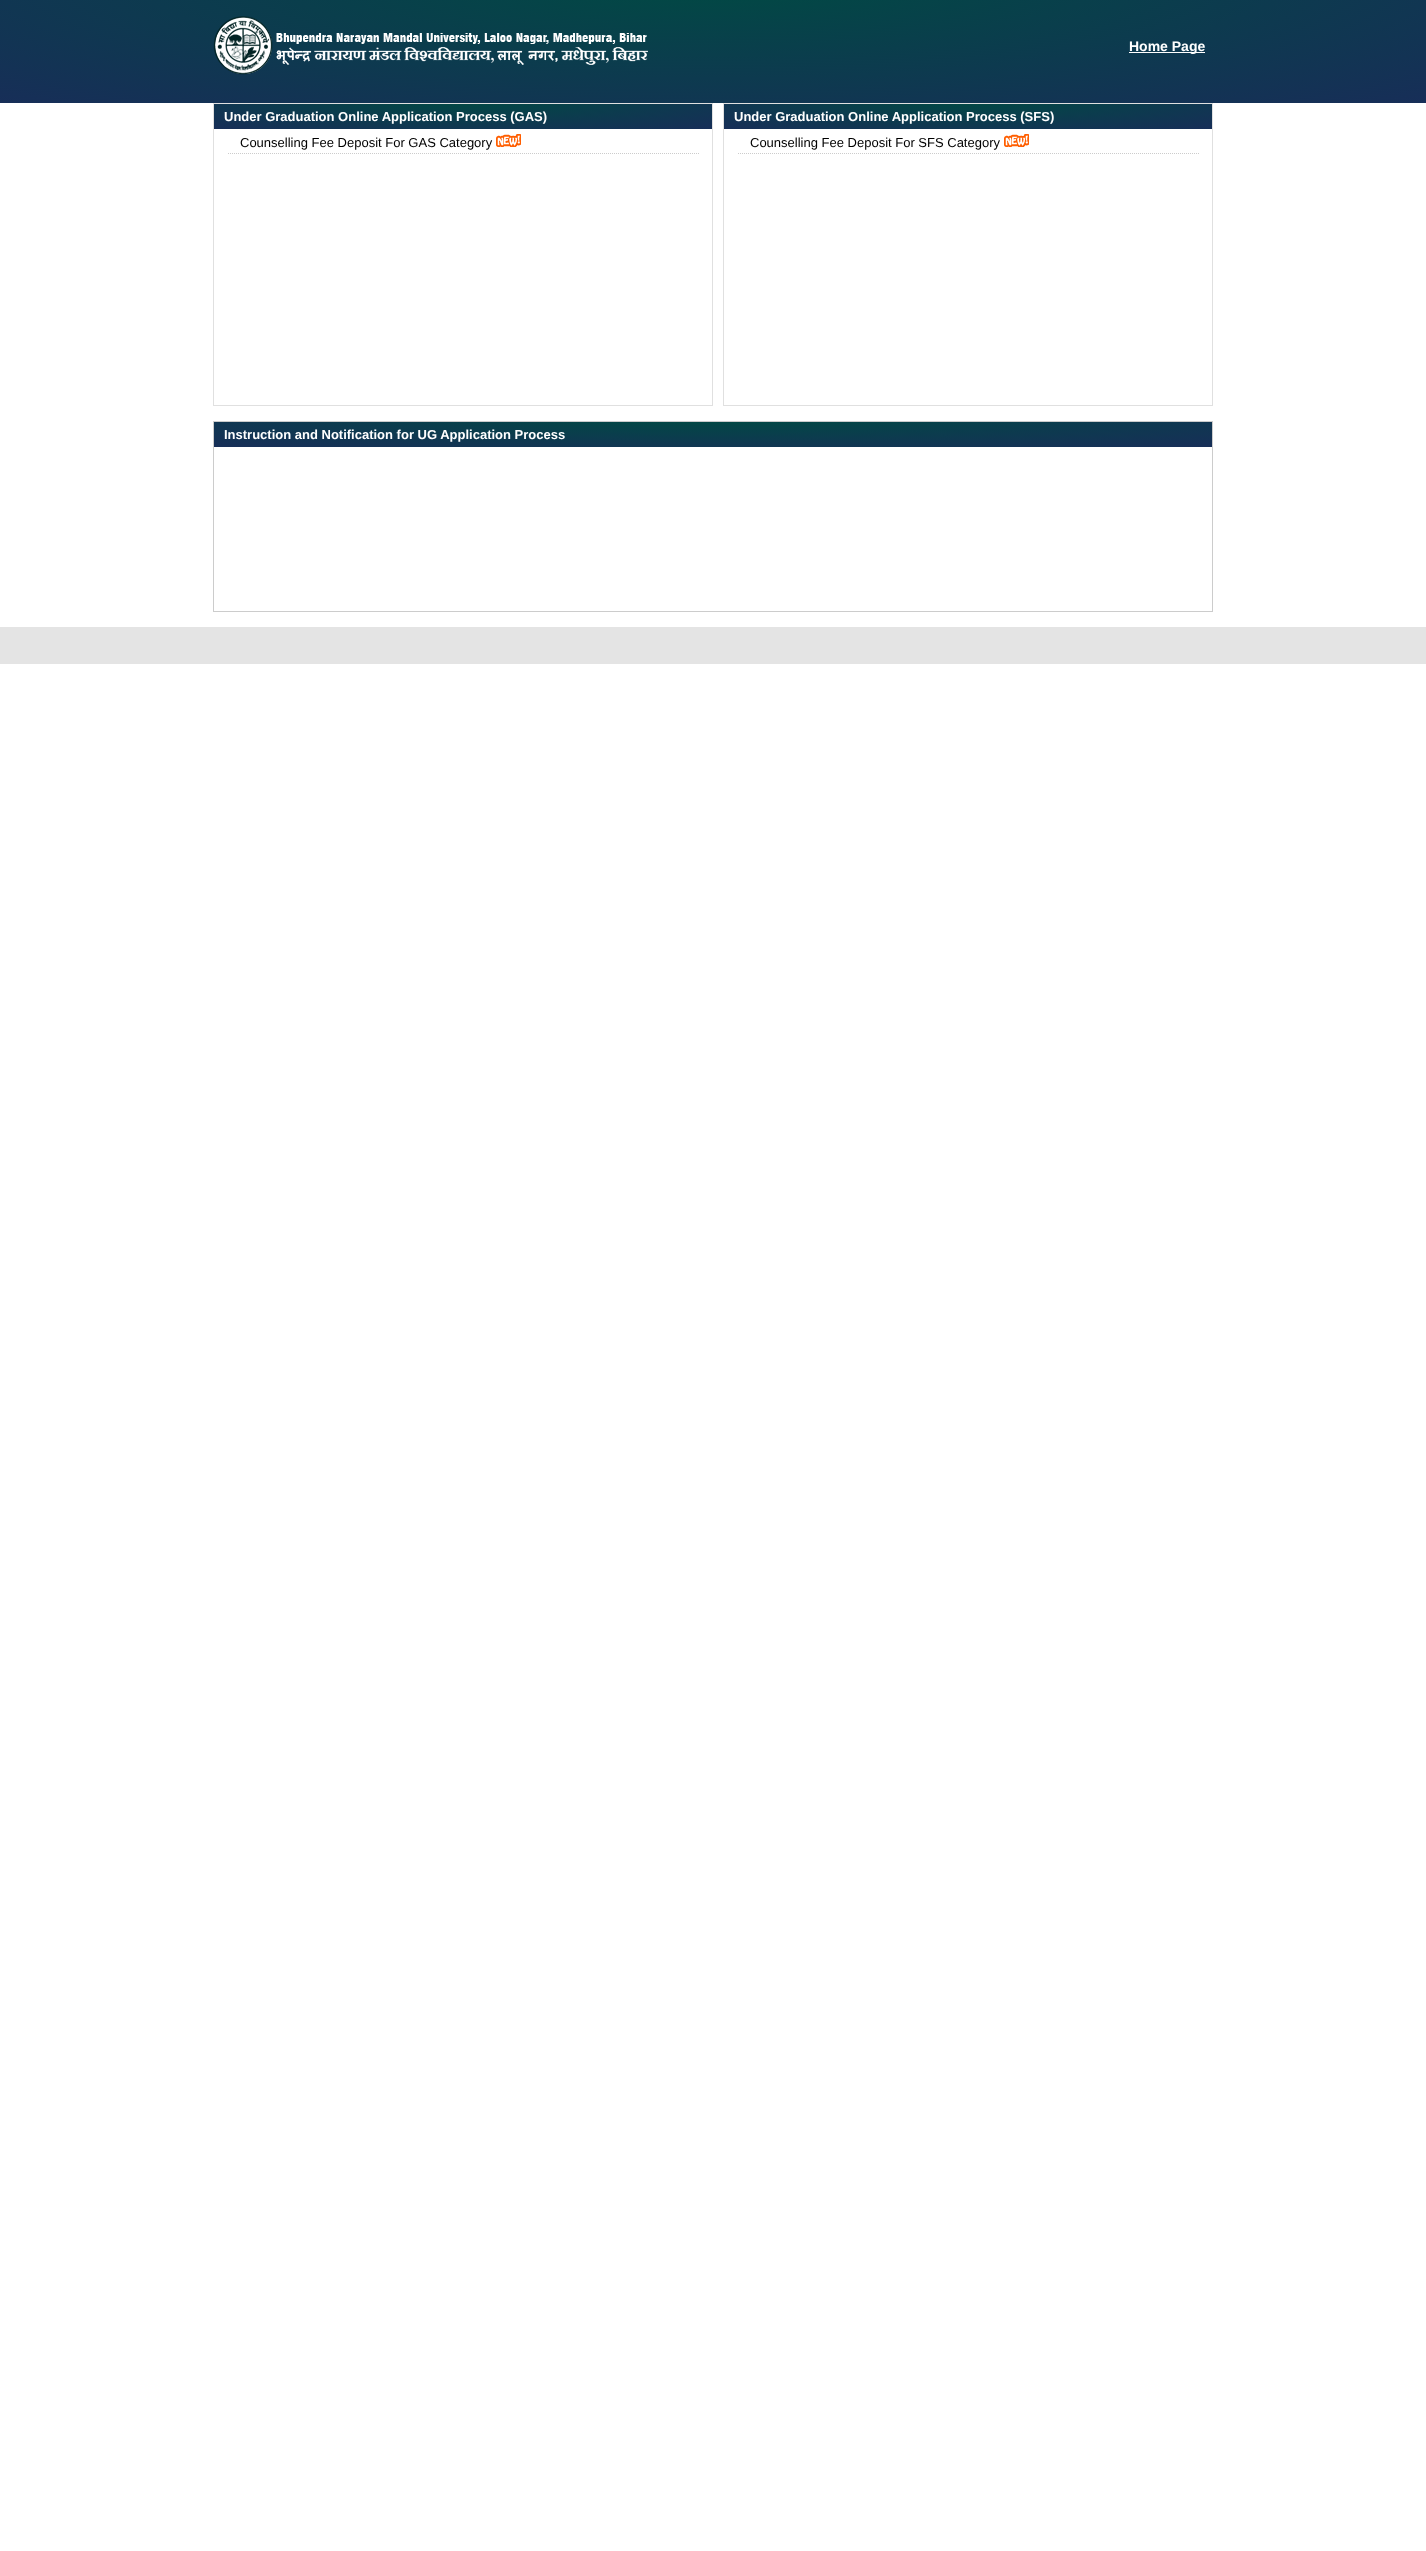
<svg xmlns="http://www.w3.org/2000/svg" width="1426" height="2551">
<defs>
<radialGradient id="g1" gradientUnits="userSpaceOnUse" cx="0" cy="0" r="1" gradientTransform="matrix(1008 0 0 175 713 -21)"><stop offset="0" stop-color="#004a43"/><stop offset="1" stop-color="#172e58"/></radialGradient>
<radialGradient id="g2" gradientUnits="userSpaceOnUse" cx="0" cy="0" r="1" gradientTransform="matrix(352 0 0 42 463 99)"><stop offset="0" stop-color="#004a43"/><stop offset="1" stop-color="#172e58"/></radialGradient>
<radialGradient id="g3" gradientUnits="userSpaceOnUse" cx="0" cy="0" r="1" gradientTransform="matrix(345 0 0 42 968 99)"><stop offset="0" stop-color="#004a43"/><stop offset="1" stop-color="#172e58"/></radialGradient>
<radialGradient id="g4" gradientUnits="userSpaceOnUse" cx="0" cy="0" r="1" gradientTransform="matrix(706 0 0 42 713 417)"><stop offset="0" stop-color="#004a43"/><stop offset="1" stop-color="#172e58"/></radialGradient>
</defs>
<rect width="100%" height="100%" fill="#fff"/>
<rect width="1426" height="103" fill="url(#g1)"/>
<image x="213" y="16" width="435" height="59" href="media/1.png"/>
<rect x="1129" y="52" width="76" height="1" fill="#fff"/>
<text x="1129" y="51" style="font-family:Liberation Sans;font-size:14px;font-weight:bold;fill:#fff">Home Page</text>
<rect x="213.5" y="103.5" width="499" height="302" fill="none" stroke="#e0e0e0"/>
<rect x="214" y="104" width="498" height="25" fill="url(#g2)"/>
<text x="224" y="121" style="font-family:Liberation Sans;font-size:13px;font-weight:bold;fill:#fff">Under Graduation Online Application Process (GAS)</text>
<path d="M228 153.5h471" fill="none" stroke="#ccc" stroke-dasharray="1 1"/>
<text x="240" y="147" style="font-family:Liberation Sans;font-size:13px;fill:#000">Counselling Fee Deposit For GAS Category</text>
<image x="496" y="134" width="25" height="13" href="media/2.png"/>
<rect x="723.5" y="103.5" width="489" height="302" fill="none" stroke="#e0e0e0"/>
<rect x="724" y="104" width="488" height="25" fill="url(#g3)"/>
<text x="734" y="121" style="font-family:Liberation Sans;font-size:13px;font-weight:bold;fill:#fff">Under Graduation Online Application Process (SFS)</text>
<path d="M738 153.5h462" fill="none" stroke="#ccc" stroke-dasharray="1 1"/>
<text x="750" y="147" style="font-family:Liberation Sans;font-size:13px;fill:#000">Counselling Fee Deposit For SFS Category</text>
<image x="1004" y="134" width="25" height="13" href="media/2.png"/>
<rect x="213.5" y="421.5" width="999" height="190" fill="none" stroke="#ccc"/>
<rect x="214" y="422" width="998" height="25" fill="url(#g4)"/>
<text x="224" y="439" style="font-family:Liberation Sans;font-size:13px;font-weight:bold;fill:#fff">Instruction and Notification for UG Application Process</text>
<rect y="627" width="1426" height="37" fill="#e4e4e4"/>
</svg>
